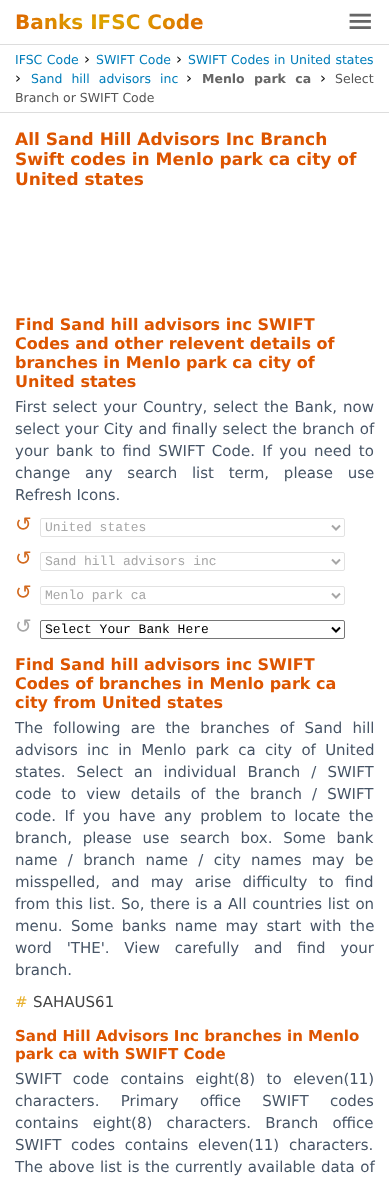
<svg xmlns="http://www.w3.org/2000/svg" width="389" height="1187">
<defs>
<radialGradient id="g1" gradientUnits="userSpaceOnUse" cx="0" cy="0" r="1" gradientTransform="matrix(267 0 0 34 109 22)"><stop offset="0" stop-color="#da0"/><stop offset="0.15" stop-color="#d90"/><stop offset="0.3" stop-color="#d70"/><stop offset="0.5" stop-color="#d50"/><stop offset="0.5" stop-color="#da0"/><stop offset="0.65" stop-color="#d90"/><stop offset="0.8" stop-color="#d70"/><stop offset="1" stop-color="#d50"/></radialGradient>
</defs>
<rect width="100%" height="100%" fill="#fff"/>
<rect y="44" width="389" height="1" fill="#ddd"/>
<text x="15" y="29" style="font-family:DejaVu Sans;font-size:20px;font-weight:bold;fill:url(#g1)">Banks IFSC Code</text>
<text x="346" y="32" style="font-family:DejaVu Sans;font-size:34px;fill:#666">≡</text>
<rect y="112" width="389" height="1" fill="#ddd"/>
<text x="15" y="64" word-spacing="0.5" style="font-family:DejaVu Sans;font-size:12.5px;fill:#007dba">IFSC Code</text>
<text x="84" y="64" style="font-family:DejaVu Sans;font-size:15px;fill:#111">›</text>
<text x="96" y="64" word-spacing="0.5" style="font-family:DejaVu Sans;font-size:12.5px;fill:#007dba">SWIFT Code</text>
<text x="176" y="64" style="font-family:DejaVu Sans;font-size:15px;fill:#111">›</text>
<text x="188" y="64" word-spacing="0.5" style="font-family:DejaVu Sans;font-size:12.5px;fill:#007dba">SWIFT Codes in United states</text>
<text x="15" y="83" style="font-family:DejaVu Sans;font-size:15px;fill:#111">›</text>
<text x="31" y="83" word-spacing="5" style="font-family:DejaVu Sans;font-size:12.5px;fill:#007dba">Sand hill advisors inc</text>
<text x="186" y="83" style="font-family:DejaVu Sans;font-size:15px;fill:#111">›</text>
<text x="202" y="83" word-spacing="5" style="font-family:DejaVu Sans;font-size:12.5px;font-weight:bold;fill:#666">Menlo park ca</text>
<text x="320" y="83" style="font-family:DejaVu Sans;font-size:15px;fill:#111">›</text>
<text x="335" y="83" style="font-family:DejaVu Sans;font-size:12.5px;fill:#555">Select</text>
<text x="15" y="102" style="font-family:DejaVu Sans;font-size:12.5px;fill:#555">Branch or SWIFT Code</text>
<text x="15" y="145" style="font-family:DejaVu Sans;font-size:17px;font-weight:bold;fill:#d50">All Sand Hill Advisors Inc Branch</text>
<text x="15" y="165" style="font-family:DejaVu Sans;font-size:17px;font-weight:bold;fill:#d50">Swift codes in Menlo park ca city of</text>
<text x="15" y="185" style="font-family:DejaVu Sans;font-size:17px;font-weight:bold;fill:#d50">United states</text>
<text x="15" y="330" style="font-family:DejaVu Sans;font-size:16px;font-weight:bold;fill:#d50">Find Sand hill advisors inc SWIFT</text>
<text x="15" y="349" style="font-family:DejaVu Sans;font-size:16px;font-weight:bold;fill:#d50">Codes and other relevent details of</text>
<text x="15" y="368" style="font-family:DejaVu Sans;font-size:16px;font-weight:bold;fill:#d50">branches in Menlo park ca city of</text>
<text x="15" y="387" style="font-family:DejaVu Sans;font-size:16px;font-weight:bold;fill:#d50">United states</text>
<text x="15" y="412" word-spacing="1.25" style="font-family:DejaVu Sans;font-size:15px;fill:#475566">First select your Country, select the Bank, now</text>
<text x="15" y="434" word-spacing="0.5" style="font-family:DejaVu Sans;font-size:15px;fill:#475566">select your City and finally select the branch of</text>
<text x="15" y="456" word-spacing="2.5" style="font-family:DejaVu Sans;font-size:15px;fill:#475566">your bank to find SWIFT Code. If you need to</text>
<text x="15" y="478" word-spacing="10" style="font-family:DejaVu Sans;font-size:15px;fill:#475566">change any search list term, please use</text>
<text x="15" y="500" style="font-family:DejaVu Sans;font-size:15px;fill:#475566">Refresh Icons.</text>
<text x="15" y="531" style="font-family:DejaVu Sans;font-size:20px;fill:#d2691e">↺</text>
<rect x="40.5" y="518.5" width="304" height="18" rx="1.5" fill="none" stroke="#e2e2e2"/>
<path d="M332 525.5l4 4l4-4" fill="none" stroke="#a6a6a6" stroke-width="2"/>
<text x="45" y="531" style="font-family:Liberation Mono;font-size:13px;fill:#a6a6a6">United states</text>
<text x="15" y="565" style="font-family:DejaVu Sans;font-size:20px;fill:#d2691e">↺</text>
<rect x="40.5" y="552.5" width="304" height="18" rx="1.5" fill="none" stroke="#e2e2e2"/>
<path d="M332 559.5l4 4l4-4" fill="none" stroke="#a6a6a6" stroke-width="2"/>
<text x="45" y="565" style="font-family:Liberation Mono;font-size:13px;fill:#a6a6a6">Sand hill advisors inc</text>
<text x="15" y="599" style="font-family:DejaVu Sans;font-size:20px;fill:#d2691e">↺</text>
<rect x="40.5" y="586.5" width="304" height="18" rx="1.5" fill="none" stroke="#e2e2e2"/>
<path d="M332 593.5l4 4l4-4" fill="none" stroke="#a6a6a6" stroke-width="2"/>
<text x="45" y="599" style="font-family:Liberation Mono;font-size:13px;fill:#a6a6a6">Menlo park ca</text>
<text x="15" y="633" style="font-family:DejaVu Sans;font-size:20px;fill:#a6a6a6">↺</text>
<rect x="40.5" y="620.5" width="304" height="18" rx="1.5" fill="none" stroke="#767676"/>
<path d="M332 627.5l4 4l4-4" fill="none" stroke="#000" stroke-width="2"/>
<text x="45" y="633" style="font-family:Liberation Mono;font-size:13px;fill:#000">Select Your Bank Here</text>
<text x="15" y="670" style="font-family:DejaVu Sans;font-size:16px;font-weight:bold;fill:#d50">Find Sand hill advisors inc SWIFT</text>
<text x="15" y="689" style="font-family:DejaVu Sans;font-size:16px;font-weight:bold;fill:#d50">Codes of branches in Menlo park ca</text>
<text x="15" y="708" style="font-family:DejaVu Sans;font-size:16px;font-weight:bold;fill:#d50">city from United states</text>
<text x="15" y="733" word-spacing="5.5" style="font-family:DejaVu Sans;font-size:15px;fill:#475566">The following are the branches of Sand hill</text>
<text x="15" y="755" word-spacing="4.5" style="font-family:DejaVu Sans;font-size:15px;fill:#475566">advisors inc in Menlo park ca city of United</text>
<text x="15" y="777" word-spacing="6.25" style="font-family:DejaVu Sans;font-size:15px;fill:#475566">states. Select an individual Branch / SWIFT</text>
<text x="15" y="799" word-spacing="5.25" style="font-family:DejaVu Sans;font-size:15px;fill:#475566">code to view details of the branch / SWIFT</text>
<text x="15" y="821" word-spacing="3.75" style="font-family:DejaVu Sans;font-size:15px;fill:#475566">code. If you have any problem to locate the</text>
<text x="15" y="843" word-spacing="6" style="font-family:DejaVu Sans;font-size:15px;fill:#475566">branch, please use search box. Some bank</text>
<text x="15" y="865" word-spacing="5.5" style="font-family:DejaVu Sans;font-size:15px;fill:#475566">name / branch name / city names may be</text>
<text x="15" y="887" word-spacing="6.5" style="font-family:DejaVu Sans;font-size:15px;fill:#475566">misspelled, and may arise difficulty to find</text>
<text x="15" y="909" word-spacing="0.9" style="font-family:DejaVu Sans;font-size:15px;fill:#475566">from this list. So, there is a All countries list on</text>
<text x="15" y="931" word-spacing="3.5" style="font-family:DejaVu Sans;font-size:15px;fill:#475566">menu. Some banks name may start with the</text>
<text x="15" y="953" word-spacing="10" style="font-family:DejaVu Sans;font-size:15px;fill:#475566">word 'THE'. View carefully and find your</text>
<text x="15" y="975" style="font-family:DejaVu Sans;font-size:15px;fill:#475566">branch.</text>
<text x="15" y="1007" style="font-family:DejaVu Sans;font-size:15px;fill:#e8b02c">#</text>
<text x="33" y="1007" style="font-family:DejaVu Sans;font-size:15px;fill:#444">SAHAUS61</text>
<text x="15" y="1041" style="font-family:DejaVu Sans;font-size:15px;font-weight:bold;fill:#d50">Sand Hill Advisors Inc branches in Menlo</text>
<text x="15" y="1059" style="font-family:DejaVu Sans;font-size:15px;font-weight:bold;fill:#d50">park ca with SWIFT Code</text>
<text x="15" y="1084" word-spacing="6.75" style="font-family:DejaVu Sans;font-size:15px;fill:#475566">SWIFT code contains eight(8) to eleven(11)</text>
<text x="15" y="1106" word-spacing="16.5" style="font-family:DejaVu Sans;font-size:15px;fill:#475566">characters. Primary office SWIFT codes</text>
<text x="15" y="1128" word-spacing="9.5" style="font-family:DejaVu Sans;font-size:15px;fill:#475566">contains eight(8) characters. Branch office</text>
<text x="15" y="1150" word-spacing="5" style="font-family:DejaVu Sans;font-size:15px;fill:#475566">SWIFT codes contains eleven(11) characters.</text>
<text x="15" y="1172" word-spacing="0.75" style="font-family:DejaVu Sans;font-size:15px;fill:#475566">The above list is the currently available data of</text>
</svg>
